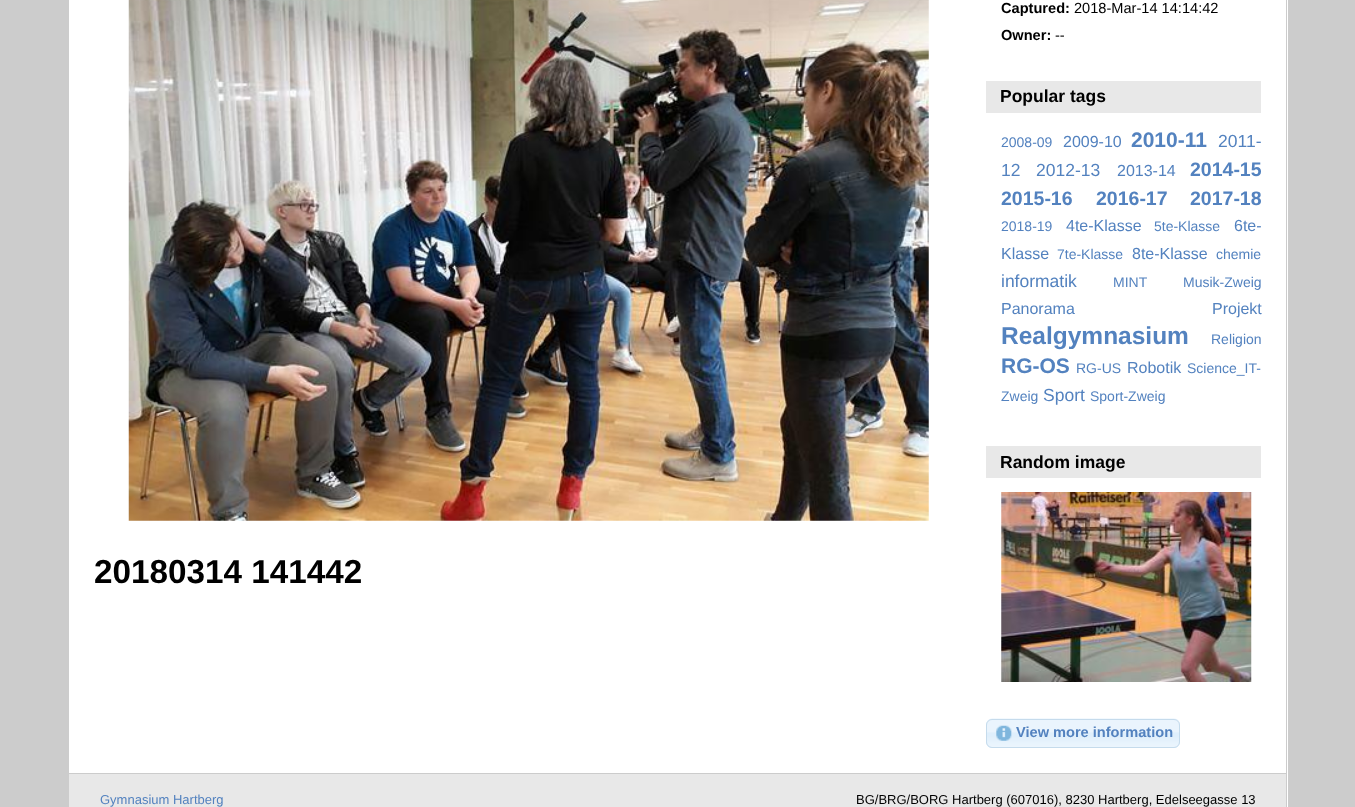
<svg xmlns="http://www.w3.org/2000/svg" width="1355" height="807">
<rect width="100%" height="100%" fill="#ccc"/>
<rect x="69" width="1219" height="807" fill="#fff"/>
<rect x="1286" width="1" height="807" fill="#ccc"/>
<image x="128" y="0" width="801" height="521" href="media/1.png"/>
<text x="94" y="583" style="font-family:Liberation Sans;font-size:33.25px;font-weight:bold;fill:#000">20180314 141442</text>
<text x="1001" y="13" style="font-family:Liberation Sans;font-size:14.6px;font-weight:bold;fill:#000">Captured:</text>
<text x="1074" y="13" style="font-family:Liberation Sans;font-size:14.6px;fill:#000">2018-Mar-14 14:14:42</text>
<text x="1001" y="40" style="font-family:Liberation Sans;font-size:14.6px;font-weight:bold;fill:#000">Owner:</text>
<text x="1055" y="40" style="font-family:Liberation Sans;font-size:14.6px;fill:#000">--</text>
<rect x="986" y="81" width="275" height="32" fill="#e8e8e8"/>
<text x="1000" y="102" style="font-family:Liberation Sans;font-size:17.5px;font-weight:bold;fill:#000">Popular tags</text>
<text x="1001" y="147" style="font-family:Liberation Sans;font-size:14px;fill:#5382bf">2008-09</text>
<text x="1063" y="147" style="font-family:Liberation Sans;font-size:16px;fill:#5382bf">2009-10</text>
<text x="1131" y="147" style="font-family:Liberation Sans;font-size:21px;font-weight:bold;fill:#5382bf">2010-11</text>
<text x="1218" y="147" style="font-family:Liberation Sans;font-size:17.5px;fill:#5382bf">2011-</text>
<text x="1001" y="176" style="font-family:Liberation Sans;font-size:17.5px;fill:#5382bf">12</text>
<text x="1036" y="176" style="font-family:Liberation Sans;font-size:17.5px;fill:#5382bf">2012-13</text>
<text x="1117" y="176" style="font-family:Liberation Sans;font-size:16px;fill:#5382bf">2013-14</text>
<text x="1190" y="176" style="font-family:Liberation Sans;font-size:19.5px;font-weight:bold;fill:#5382bf">2014-15</text>
<text x="1001" y="205" style="font-family:Liberation Sans;font-size:19.5px;font-weight:bold;fill:#5382bf">2015-16</text>
<text x="1096" y="205" style="font-family:Liberation Sans;font-size:19.5px;font-weight:bold;fill:#5382bf">2016-17</text>
<text x="1190" y="205" style="font-family:Liberation Sans;font-size:19.5px;font-weight:bold;fill:#5382bf">2017-18</text>
<text x="1001" y="231" style="font-family:Liberation Sans;font-size:14px;fill:#5382bf">2018-19</text>
<text x="1066" y="231" style="font-family:Liberation Sans;font-size:16px;fill:#5382bf">4te-Klasse</text>
<text x="1154" y="231" style="font-family:Liberation Sans;font-size:14px;fill:#5382bf">5te-Klasse</text>
<text x="1234" y="231" style="font-family:Liberation Sans;font-size:16px;fill:#5382bf">6te-</text>
<text x="1001" y="259" style="font-family:Liberation Sans;font-size:16px;fill:#5382bf">Klasse</text>
<text x="1057" y="259" style="font-family:Liberation Sans;font-size:14px;fill:#5382bf">7te-Klasse</text>
<text x="1132" y="259" style="font-family:Liberation Sans;font-size:16px;fill:#5382bf">8te-Klasse</text>
<text x="1216" y="259" style="font-family:Liberation Sans;font-size:14px;fill:#5382bf">chemie</text>
<text x="1001" y="287" style="font-family:Liberation Sans;font-size:17.5px;fill:#5382bf">informatik</text>
<text x="1113" y="287" style="font-family:Liberation Sans;font-size:14px;fill:#5382bf">MINT</text>
<text x="1183" y="287" style="font-family:Liberation Sans;font-size:14px;fill:#5382bf">Musik-Zweig</text>
<text x="1001" y="314" style="font-family:Liberation Sans;font-size:16px;fill:#5382bf">Panorama</text>
<text x="1212" y="314" style="font-family:Liberation Sans;font-size:16px;fill:#5382bf">Projekt</text>
<text x="1001" y="344" style="font-family:Liberation Sans;font-size:24.5px;font-weight:bold;fill:#5382bf">Realgymnasium</text>
<text x="1211" y="344" style="font-family:Liberation Sans;font-size:14px;fill:#5382bf">Religion</text>
<text x="1001" y="373" style="font-family:Liberation Sans;font-size:21px;font-weight:bold;fill:#5382bf">RG-OS</text>
<text x="1076" y="373" style="font-family:Liberation Sans;font-size:14px;fill:#5382bf">RG-US</text>
<text x="1127" y="373" style="font-family:Liberation Sans;font-size:16px;fill:#5382bf">Robotik</text>
<text x="1187" y="373" style="font-family:Liberation Sans;font-size:14px;fill:#5382bf">Science_IT-</text>
<text x="1001" y="401" style="font-family:Liberation Sans;font-size:14px;fill:#5382bf">Zweig</text>
<text x="1043" y="401" style="font-family:Liberation Sans;font-size:17.5px;fill:#5382bf">Sport</text>
<text x="1090" y="401" style="font-family:Liberation Sans;font-size:14px;fill:#5382bf">Sport-Zweig</text>
<rect x="986" y="446" width="275" height="32" fill="#e8e8e8"/>
<text x="1000" y="468" style="font-family:Liberation Sans;font-size:17.5px;font-weight:bold;fill:#000">Random image</text>
<image x="1001" y="492" width="251" height="190" href="media/2.png"/>
<rect x="986" y="719" width="194" height="29" rx="6" fill="#dfeffc"/>
<image x="986" y="718" width="194" height="29" href="media/3.png"/>
<rect x="986.5" y="719.5" width="193" height="28" rx="5.5" fill="none" stroke="#c5dbec"/>
<image x="996" y="725" width="16" height="16" href="media/4.png"/>
<text x="1016" y="737" style="font-family:Liberation Sans;font-size:14.6px;font-weight:bold;fill:#5382bf">View more information</text>
<rect x="69" y="774" width="1217" height="33" fill="#e8e8e8"/>
<rect x="69" y="773" width="1217" height="1" fill="#ccc"/>
<text x="100" y="804" style="font-family:Liberation Sans;font-size:13px;fill:#5382bf">Gymnasium Hartberg</text>
<text x="856" y="804" style="font-family:Liberation Sans;font-size:13px;fill:#000">BG/BRG/BORG Hartberg (607016), 8230 Hartberg, Edelseegasse 13</text>
</svg>
